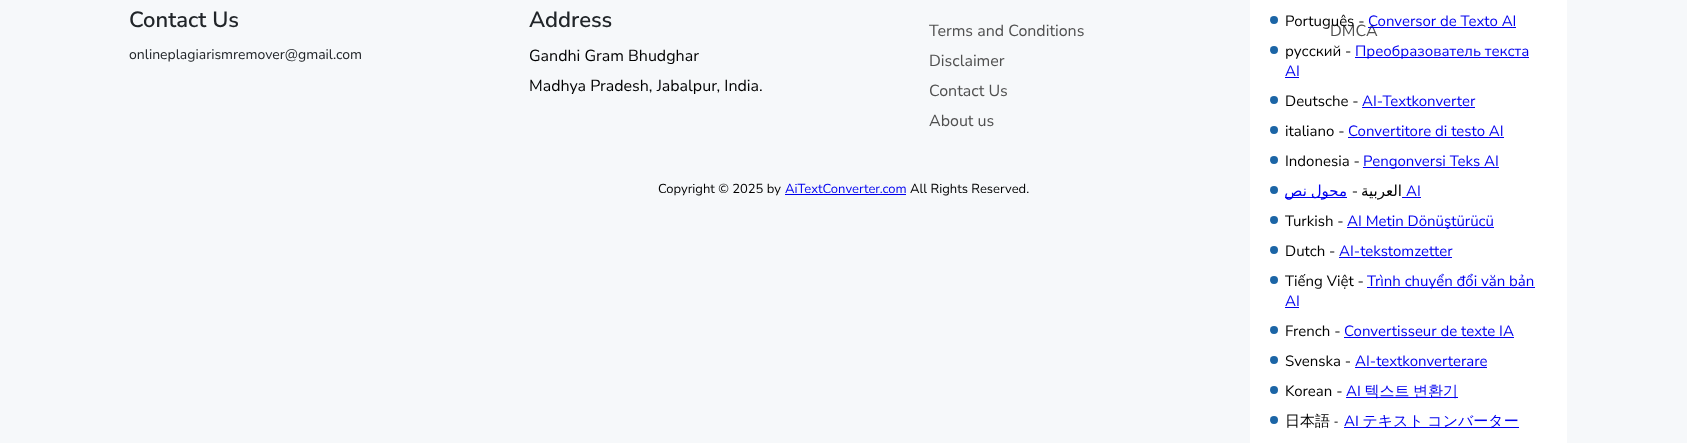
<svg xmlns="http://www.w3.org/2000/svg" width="1687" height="443">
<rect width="100%" height="100%" fill="#f6f8fa"/>
<text x="129" y="27" style="font-family:Nunito Sans;font-size:22px;font-weight:600;fill:#212529">Contact Us</text>
<text x="129" y="59" style="font-family:Nunito Sans;font-size:14px;fill:#212529">onlineplagiarismremover@gmail.com</text>
<text x="529" y="27" style="font-family:Nunito Sans;font-size:22px;font-weight:600;fill:#212529">Address</text>
<text x="529" y="61" style="font-family:Nunito Sans;font-size:16px;fill:#000">Gandhi Gram Bhudghar</text>
<text x="529" y="91" style="font-family:Nunito Sans;font-size:16px;fill:#000">Madhya Pradesh, Jabalpur, India.</text>
<text x="929" y="36" style="font-family:Nunito Sans;font-size:16px;fill:#505050">Terms and Conditions</text>
<text x="929" y="66" style="font-family:Nunito Sans;font-size:16px;fill:#505050">Disclaimer</text>
<text x="929" y="96" style="font-family:Nunito Sans;font-size:16px;fill:#505050">Contact Us</text>
<text x="929" y="126" style="font-family:Nunito Sans;font-size:16px;fill:#505050">About us</text>
<rect x="1250" width="317" height="443" fill="#fff"/>
<text x="1330" y="36" style="font-family:Nunito Sans;font-size:16px;fill:#505050">DMCA</text>
<text x="658" y="193" style="font-family:Nunito Sans;font-size:13px;fill:#000">Copyright © 2025 by</text>
<text x="785" y="193" style="font-family:Nunito Sans;font-size:13px;fill:#00e">AiTextConverter.com</text>
<rect x="785" y="194" width="121" height="1" fill="#00e"/>
<text x="910" y="193" style="font-family:Nunito Sans;font-size:13px;fill:#000">All Rights Reserved.</text>
<circle cx="1274" cy="20" r="4" fill="#1b65a6"/>
<text x="1285" y="26" style="font-family:Nunito Sans;font-size:15px;fill:#000">Português -</text>
<text x="1368" y="26" style="font-family:Nunito Sans;font-size:15px;fill:#00e">Conversor de Texto AI</text>
<rect x="1368" y="27" width="148" height="1" fill="#00e"/>
<circle cx="1274" cy="50" r="4" fill="#1b65a6"/>
<text x="1285" y="56" style="font-family:Nunito Sans;font-size:15px;fill:#000">русский -</text>
<rect x="1355" y="57" width="174" height="1" fill="#00e"/>
<text x="1355" y="56" style="font-family:Nunito Sans;font-size:15px;fill:#00e">Преобразователь текста</text>
<text x="1285" y="76" style="font-family:Nunito Sans;font-size:15px;fill:#00e">AI</text>
<rect x="1285" y="77" width="14" height="1" fill="#00e"/>
<circle cx="1274" cy="100" r="4" fill="#1b65a6"/>
<text x="1285" y="106" style="font-family:Nunito Sans;font-size:15px;fill:#000">Deutsche -</text>
<text x="1362" y="106" style="font-family:Nunito Sans;font-size:15px;fill:#00e">AI-Textkonverter</text>
<rect x="1362" y="107" width="113" height="1" fill="#00e"/>
<circle cx="1274" cy="130" r="4" fill="#1b65a6"/>
<text x="1285" y="136" style="font-family:Nunito Sans;font-size:15px;fill:#000">italiano -</text>
<text x="1348" y="136" style="font-family:Nunito Sans;font-size:15px;fill:#00e">Convertitore di testo AI</text>
<rect x="1348" y="137" width="156" height="1" fill="#00e"/>
<circle cx="1274" cy="160" r="4" fill="#1b65a6"/>
<text x="1285" y="166" style="font-family:Nunito Sans;font-size:15px;fill:#000">Indonesia -</text>
<rect x="1363" y="167" width="136" height="1" fill="#00e"/>
<text x="1363" y="166" style="font-family:Nunito Sans;font-size:15px;fill:#00e">Pengonversi Teks AI</text>
<circle cx="1274" cy="190" r="4" fill="#1b65a6"/>
<rect x="1285" y="197" width="62" height="1" fill="#00e"/>
<text x="1347" y="196" word-spacing="-1" style="font-family:DejaVu Sans;font-size:15px;direction:rtl;fill:#00e">محول نص</text>
<text x="1358" y="196" style="font-family:Nunito Sans;font-size:15px;direction:rtl;fill:#000">-</text>
<text x="1402" y="196" style="font-family:DejaVu Sans;font-size:15px;direction:rtl;fill:#000">العربية</text>
<text x="1406" y="196" style="font-family:Nunito Sans;font-size:15px;fill:#00e">AI</text>
<rect x="1402" y="197" width="19" height="1" fill="#00e"/>
<circle cx="1274" cy="220" r="4" fill="#1b65a6"/>
<text x="1285" y="226" style="font-family:Nunito Sans;font-size:15px;fill:#000">Turkish -</text>
<rect x="1347" y="227" width="147" height="1" fill="#00e"/>
<text x="1347" y="226" style="font-family:Nunito Sans;font-size:15px;fill:#00e">AI Metin Dönüştürücü</text>
<circle cx="1274" cy="250" r="4" fill="#1b65a6"/>
<text x="1285" y="256" style="font-family:Nunito Sans;font-size:15px;fill:#000">Dutch -</text>
<text x="1339" y="256" style="font-family:Nunito Sans;font-size:15px;fill:#00e">AI-tekstomzetter</text>
<rect x="1339" y="257" width="113" height="1" fill="#00e"/>
<circle cx="1274" cy="280" r="4" fill="#1b65a6"/>
<text x="1285" y="286" style="font-family:Nunito Sans;font-size:15px;fill:#000">Tiếng Việt -</text>
<rect x="1367" y="287" width="168" height="1" fill="#00e"/>
<text x="1367" y="286" style="font-family:Nunito Sans;font-size:15px;fill:#00e">Trình chuyển đổi văn bản</text>
<text x="1285" y="306" style="font-family:Nunito Sans;font-size:15px;fill:#00e">AI</text>
<rect x="1285" y="307" width="14" height="1" fill="#00e"/>
<circle cx="1274" cy="330" r="4" fill="#1b65a6"/>
<text x="1285" y="336" style="font-family:Nunito Sans;font-size:15px;fill:#000">French -</text>
<text x="1344" y="336" style="font-family:Nunito Sans;font-size:15px;fill:#00e">Convertisseur de texte IA</text>
<rect x="1344" y="337" width="170" height="1" fill="#00e"/>
<circle cx="1274" cy="360" r="4" fill="#1b65a6"/>
<text x="1285" y="366" style="font-family:Nunito Sans;font-size:15px;fill:#000">Svenska -</text>
<text x="1355" y="366" style="font-family:Nunito Sans;font-size:15px;fill:#00e">AI-textkonverterare</text>
<rect x="1355" y="367" width="132" height="1" fill="#00e"/>
<circle cx="1274" cy="390" r="4" fill="#1b65a6"/>
<text x="1285" y="396" style="font-family:Nunito Sans;font-size:15px;fill:#000">Korean -</text>
<text x="1346" y="396" style="font-family:Nunito Sans;font-size:15px;fill:#00e">A</text>
<rect x="1346" y="397" width="112" height="1" fill="#00e"/>
<text x="1357" y="396" word-spacing="-1" style="font-family:WenQuanYi Zen Hei;font-size:15px;font-weight:500;fill:#00e">I 텍스트 변환기</text>
<circle cx="1274" cy="420" r="4" fill="#1b65a6"/>
<text x="1285" y="426" style="font-family:WenQuanYi Zen Hei;font-size:15px;font-weight:500;fill:#000">日本語 -</text>
<text x="1344" y="426" style="font-family:Nunito Sans;font-size:15px;fill:#00e">A</text>
<rect x="1344" y="427" width="175" height="1" fill="#00e"/>
<text x="1355" y="426" word-spacing="-1" style="font-family:WenQuanYi Zen Hei;font-size:15px;font-weight:500;fill:#00e">I テキスト コンバーター</text>
</svg>
